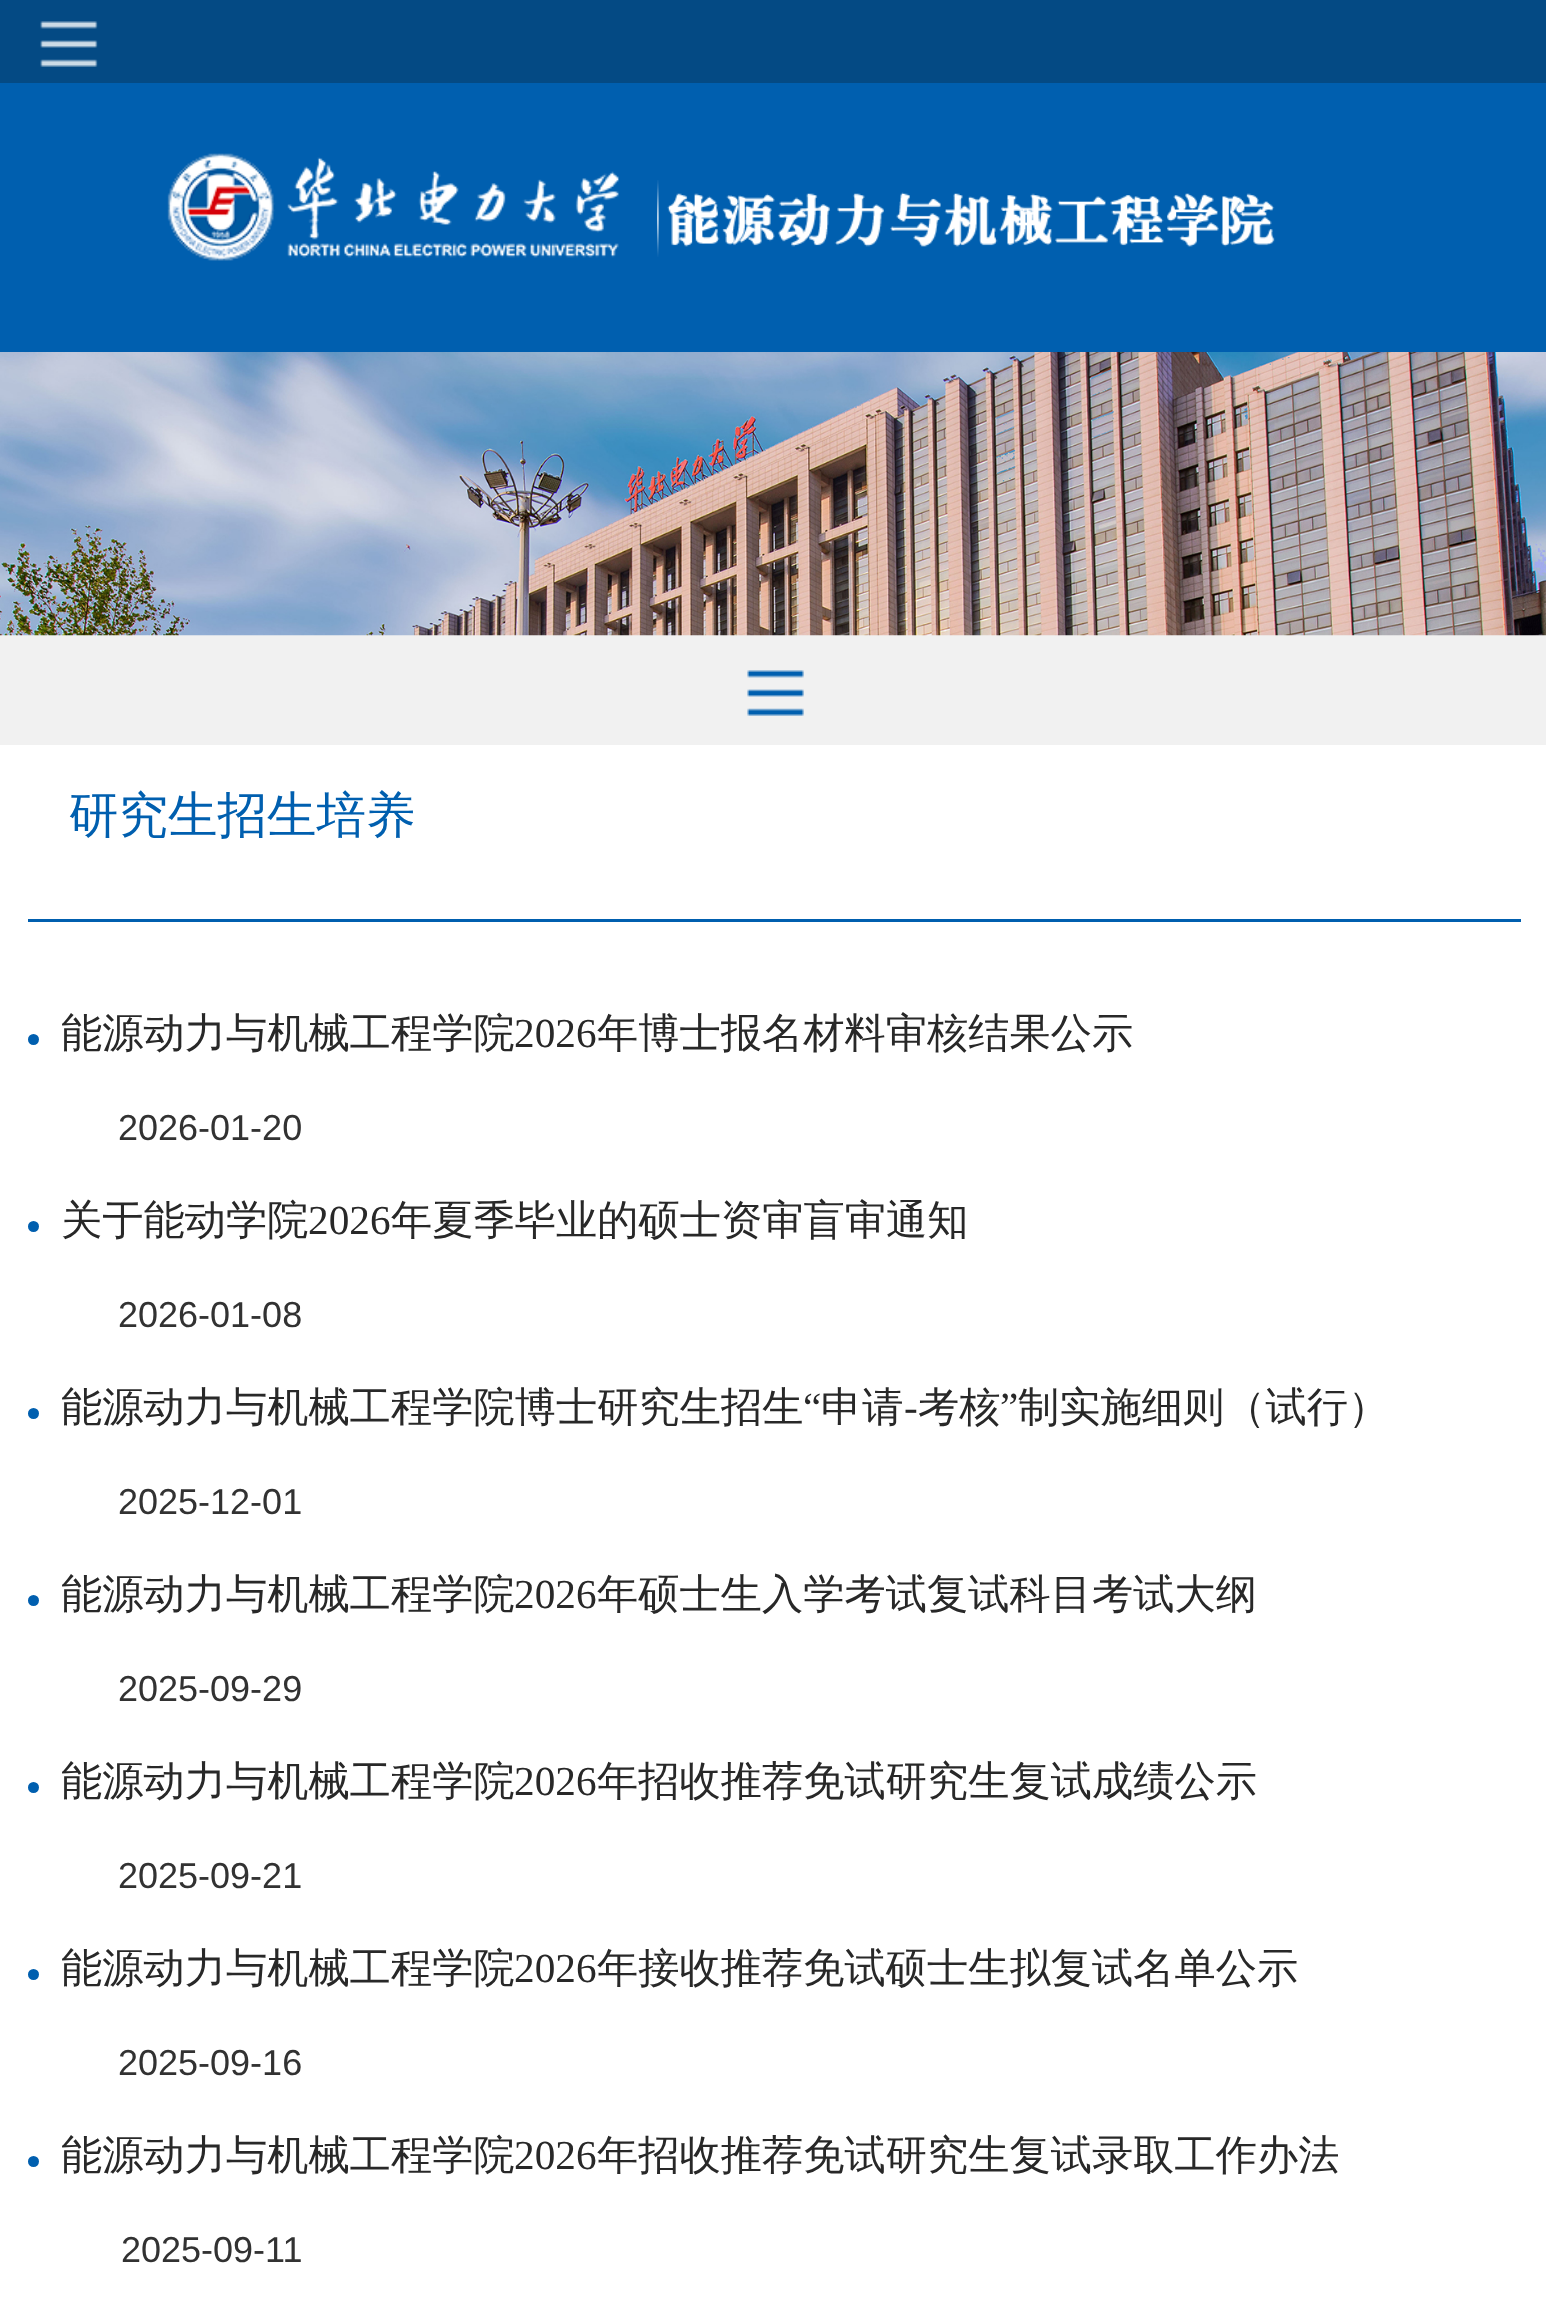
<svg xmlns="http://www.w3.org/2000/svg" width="1546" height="2312">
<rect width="100%" height="100%" fill="#fff"/>
<rect y="83" width="1546" height="269" fill="#005faf"/>
<rect width="1546" height="83" fill="#044a84"/>
<image x="40" y="21" width="58" height="46" href="media/1.png"/>
<image x="167" y="153" width="452" height="108" href="media/2.png"/>
<image x="657" y="180" width="618" height="77" href="media/3.png"/>
<rect y="635" width="1546" height="110" fill="#f1f1f1"/>
<image x="0" y="352" width="1546" height="284" href="media/4.png"/>
<image x="747" y="670" width="57" height="46" href="media/5.png"/>
<rect x="28" y="919" width="1493" height="3" fill="#005faf"/>
<text x="69" y="832" style="font-family:WenQuanYi Zen Hei;font-size:49.5px;font-weight:500;fill:#005faf">研究生招生培养</text>
<circle cx="33.5" cy="1039.5" r="5.5" fill="#005faf"/>
<text x="61" y="1047" style="font-family:WenQuanYi Zen Hei;font-size:41.25px;font-weight:500;fill:#282828">能源动力与机械工程学院</text>
<text x="514" y="1047" style="font-family:Liberation Serif;font-size:41.25px;fill:#282828">2026</text>
<text x="597" y="1047" style="font-family:WenQuanYi Zen Hei;font-size:41.25px;font-weight:500;fill:#282828">年博士报名材料审核结果公示</text>
<text x="118" y="1140" style="font-family:Liberation Sans;font-size:36px;fill:#323232">2026-01-20</text>
<circle cx="33.5" cy="1226.5" r="5.5" fill="#005faf"/>
<text x="61" y="1234" style="font-family:WenQuanYi Zen Hei;font-size:41.25px;font-weight:500;fill:#282828">关于能动学院</text>
<text x="308" y="1234" style="font-family:Liberation Serif;font-size:41.25px;fill:#282828">2026</text>
<text x="391" y="1234" style="font-family:WenQuanYi Zen Hei;font-size:41.25px;font-weight:500;fill:#282828">年夏季毕业的硕士资审盲审通知</text>
<text x="118" y="1327" style="font-family:Liberation Sans;font-size:36px;fill:#323232">2026-01-08</text>
<circle cx="33.5" cy="1413.5" r="5.5" fill="#005faf"/>
<text x="61" y="1421" style="font-family:WenQuanYi Zen Hei;font-size:41.25px;font-weight:500;fill:#282828">能源动力与机械工程学院博士研究生招生</text>
<text x="803" y="1421" style="font-family:Liberation Serif;font-size:41.25px;fill:#282828">“</text>
<text x="821" y="1421" style="font-family:WenQuanYi Zen Hei;font-size:41.25px;font-weight:500;fill:#282828">申请</text>
<text x="918" y="1421" style="font-family:WenQuanYi Zen Hei;font-size:41.25px;font-weight:500;fill:#282828">考核</text>
<text x="1000" y="1421" style="font-family:Liberation Serif;font-size:41.25px;fill:#282828">”</text>
<text x="1018" y="1421" style="font-family:WenQuanYi Zen Hei;font-size:41.25px;font-weight:500;fill:#282828">制实施细则（试行）</text>
<text x="904" y="1421" style="font-family:Liberation Serif;font-size:41.25px;fill:#282828">-</text>
<text x="118" y="1514" style="font-family:Liberation Sans;font-size:36px;fill:#323232">2025-12-01</text>
<circle cx="33.5" cy="1600.5" r="5.5" fill="#005faf"/>
<text x="61" y="1608" style="font-family:WenQuanYi Zen Hei;font-size:41.25px;font-weight:500;fill:#282828">能源动力与机械工程学院</text>
<text x="514" y="1608" style="font-family:Liberation Serif;font-size:41.25px;fill:#282828">2026</text>
<text x="597" y="1608" style="font-family:WenQuanYi Zen Hei;font-size:41.25px;font-weight:500;fill:#282828">年硕士生入学考试复试科目考试大纲</text>
<text x="118" y="1701" style="font-family:Liberation Sans;font-size:36px;fill:#323232">2025-09-29</text>
<circle cx="33.5" cy="1787.5" r="5.5" fill="#005faf"/>
<text x="61" y="1795" style="font-family:WenQuanYi Zen Hei;font-size:41.25px;font-weight:500;fill:#282828">能源动力与机械工程学院</text>
<text x="514" y="1795" style="font-family:Liberation Serif;font-size:41.25px;fill:#282828">2026</text>
<text x="597" y="1795" style="font-family:WenQuanYi Zen Hei;font-size:41.25px;font-weight:500;fill:#282828">年招收推荐免试研究生复试成绩公示</text>
<text x="118" y="1888" style="font-family:Liberation Sans;font-size:36px;fill:#323232">2025-09-21</text>
<circle cx="33.5" cy="1974.5" r="5.5" fill="#005faf"/>
<text x="61" y="1982" style="font-family:WenQuanYi Zen Hei;font-size:41.25px;font-weight:500;fill:#282828">能源动力与机械工程学院</text>
<text x="514" y="1982" style="font-family:Liberation Serif;font-size:41.25px;fill:#282828">2026</text>
<text x="597" y="1982" style="font-family:WenQuanYi Zen Hei;font-size:41.25px;font-weight:500;fill:#282828">年接收推荐免试硕士生拟复试名单公示</text>
<text x="118" y="2075" style="font-family:Liberation Sans;font-size:36px;fill:#323232">2025-09-16</text>
<circle cx="33.5" cy="2161.5" r="5.5" fill="#005faf"/>
<text x="61" y="2169" style="font-family:WenQuanYi Zen Hei;font-size:41.25px;font-weight:500;fill:#282828">能源动力与机械工程学院</text>
<text x="514" y="2169" style="font-family:Liberation Serif;font-size:41.25px;fill:#282828">2026</text>
<text x="597" y="2169" style="font-family:WenQuanYi Zen Hei;font-size:41.25px;font-weight:500;fill:#282828">年招收推荐免试研究生复试录取工作办法</text>
<text x="121" y="2262" style="font-family:Liberation Sans;font-size:36px;fill:#323232">2025-09-11</text>
</svg>
